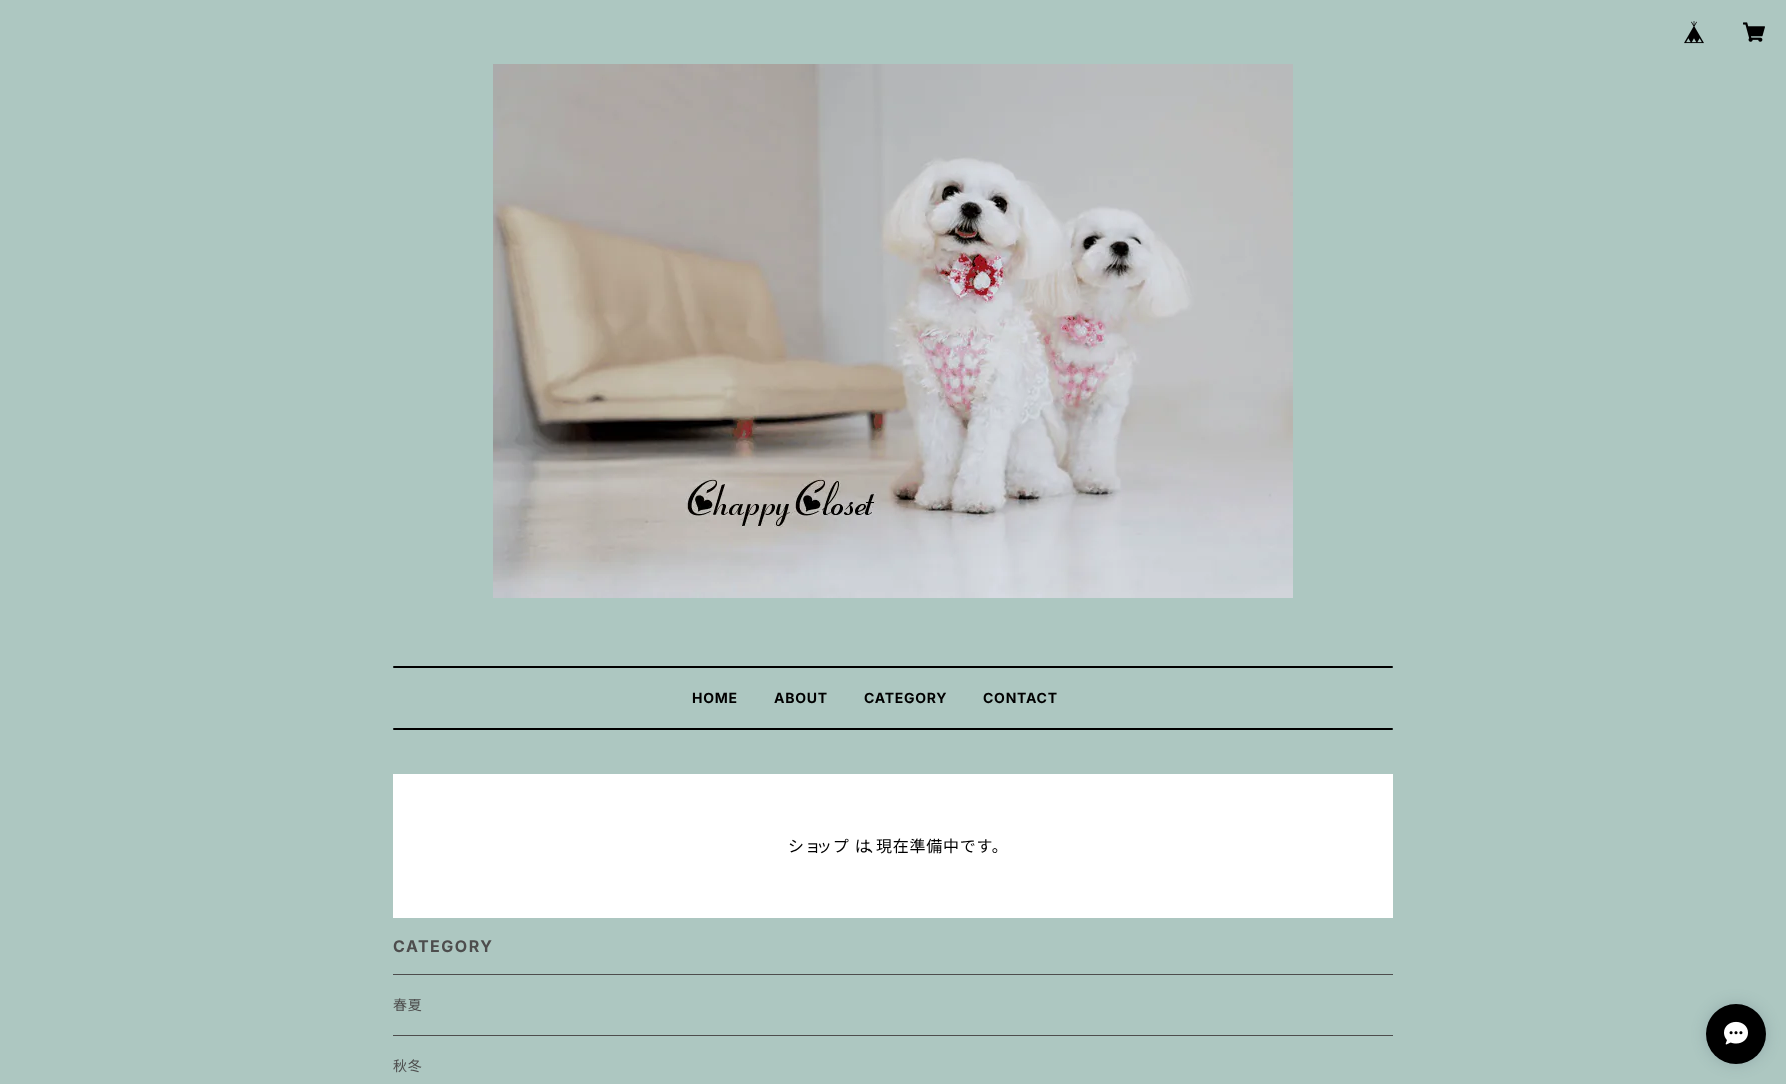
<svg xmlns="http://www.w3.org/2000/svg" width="1786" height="1084">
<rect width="100%" height="100%" fill="#adc7c1"/>
<image x="1684" y="21" width="20" height="23" href="media/1.png"/>
<image x="1743" y="22" width="22" height="20" href="media/2.png"/>
<image x="493" y="64" width="800" height="534" href="media/3.png"/>
<rect x="393" y="666" width="1000" height="2" rx="1" fill="#000"/>
<text x="692" y="703" style="font-family:Inter;font-size:14px;font-weight:bold;letter-spacing:0.75px;fill:#000">HOME</text>
<text x="774" y="703" style="font-family:Inter;font-size:14px;font-weight:bold;letter-spacing:0.75px;fill:#000">ABOUT</text>
<text x="864" y="703" style="font-family:Inter;font-size:14px;font-weight:bold;letter-spacing:0.75px;fill:#000">CATEGORY</text>
<text x="983" y="703" style="font-family:Inter;font-size:14px;font-weight:bold;letter-spacing:0.75px;fill:#000">CONTACT</text>
<rect x="393" y="728" width="1000" height="2" rx="1" fill="#000"/>
<rect x="393" y="774" width="1000" height="144" fill="#fff"/>
<text x="788" y="852" word-spacing="1" style="font-family:Noto Sans JP;font-size:16px;letter-spacing:0.75px;fill:#000">ショ</text>
<text x="816" y="852" word-spacing="1" style="font-family:Noto Sans JP;font-size:16px;letter-spacing:0.75px;fill:#000">ップ は</text>
<text x="867" y="852" word-spacing="1" style="font-family:Noto Sans JP;font-size:16px;letter-spacing:0.75px;fill:#000">、</text>
<text x="876" y="852" word-spacing="1" style="font-family:Noto Sans JP;font-size:16px;letter-spacing:0.75px;fill:#000">現在準備中です。</text>
<text x="393" y="952" style="font-family:Inter;font-size:16px;font-weight:bold;letter-spacing:1.5px;fill:#4d4d4d">CATEGORY</text>
<rect x="393" y="974" width="1000" height="1" fill="#4d4d4d"/>
<text x="393" y="1010" style="font-family:Noto Sans JP;font-size:14px;letter-spacing:0.75px;fill:#4d4d4d">春夏</text>
<rect x="393" y="1035" width="1000" height="1" fill="#4d4d4d"/>
<text x="393" y="1071" style="font-family:Noto Sans JP;font-size:14px;letter-spacing:0.75px;fill:#4d4d4d">秋冬</text>
<rect x="1706" y="1004" width="60" height="60" rx="30" fill="#33425833" filter="blur(7.5px)"/>
<circle cx="1736" cy="1034" r="30" fill="#000"/>
<image x="1724" y="1021" width="24" height="24" href="media/4.png"/>
</svg>
